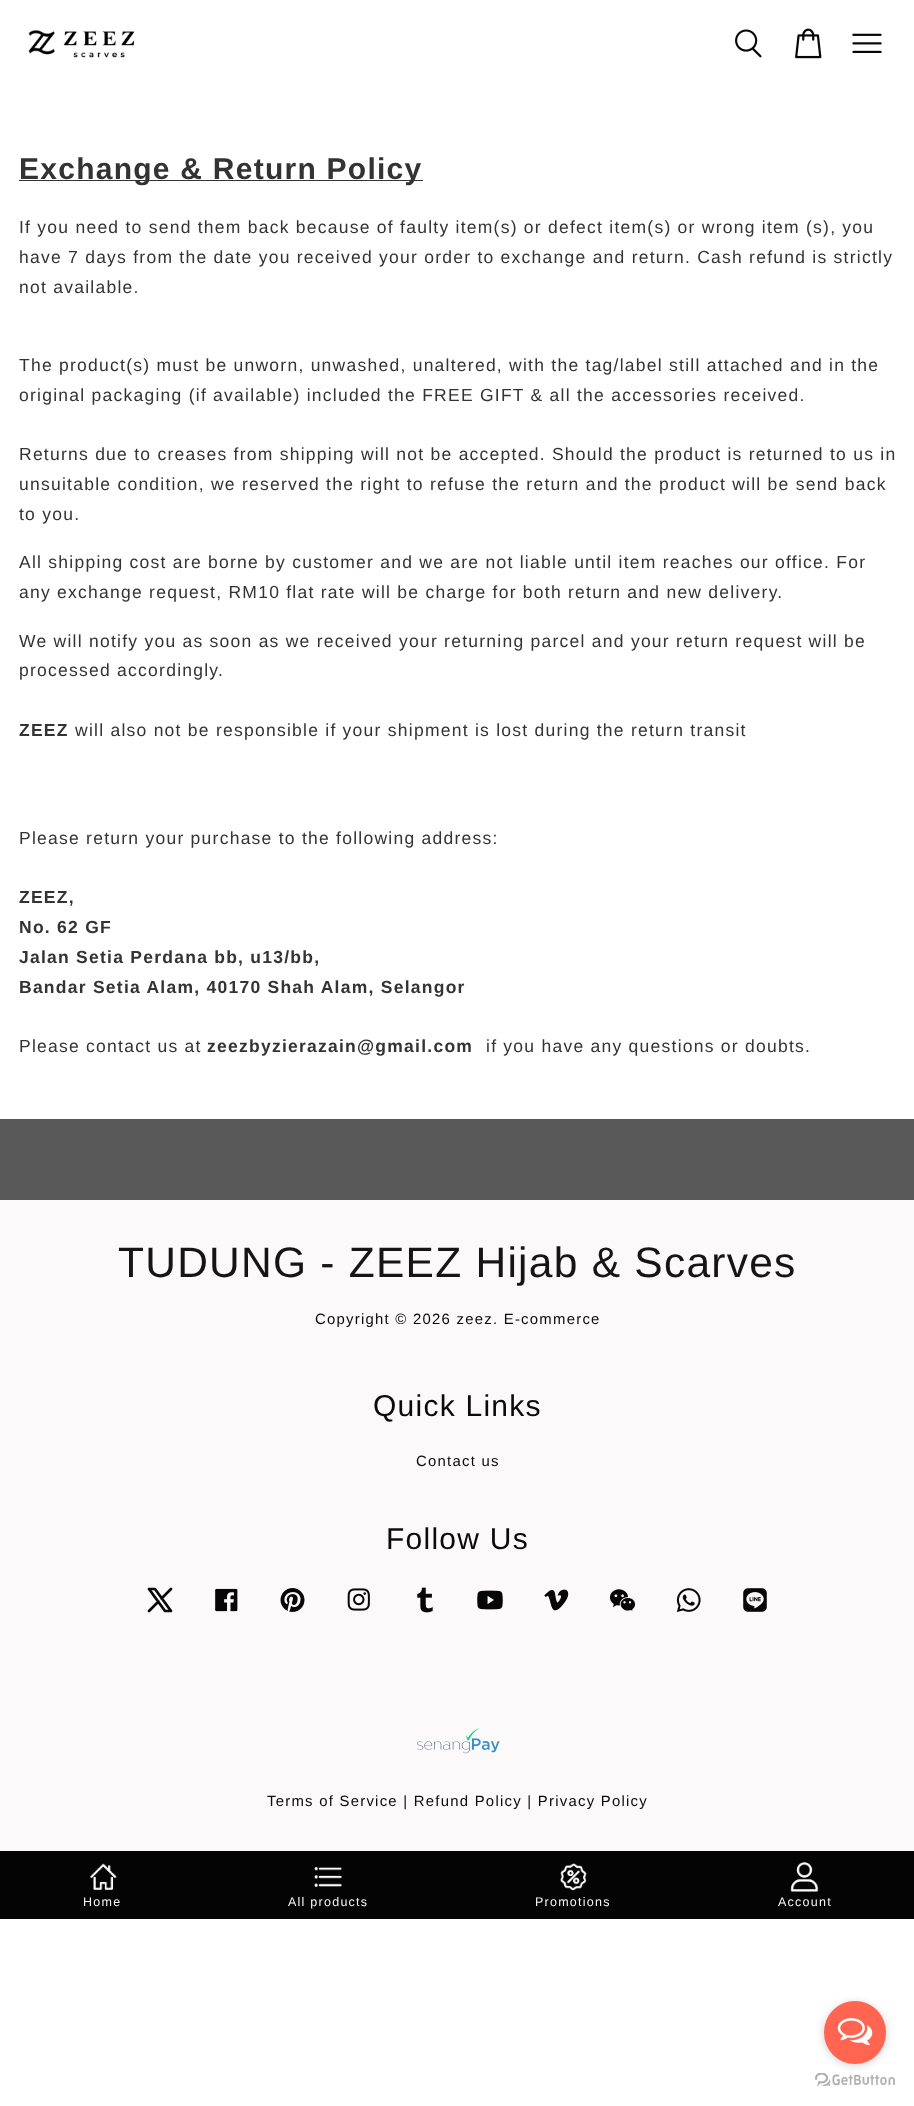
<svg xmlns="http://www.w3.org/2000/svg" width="914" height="2106">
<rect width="100%" height="100%" fill="#fff"/>
<image x="28" y="30" width="107" height="28" href="media/1.png"/>
<image x="735" y="29" width="27" height="29" href="media/2.png"/>
<image x="795" y="28" width="27" height="31" href="media/3.png"/>
<image x="852" y="33" width="30" height="20" href="media/4.png"/>
<rect x="19" y="180" width="404" height="1" fill="#333"/>
<text x="19" y="179" style="font-family:Liberation Sans;font-size:30px;font-weight:bold;letter-spacing:1.25px;fill:#333">Exchange &amp; Return Policy</text>
<text x="19" y="233" style="font-family:Liberation Sans;font-size:17.5px;letter-spacing:1.25px;fill:#333">If you need to send them back because of faulty item(s) or defect item(s) or wrong item (s), you</text>
<text x="19" y="263" style="font-family:Liberation Sans;font-size:17.5px;letter-spacing:1.25px;fill:#333">have 7 days from the date you received your order to exchange and return. Cash refund is strictly</text>
<text x="19" y="293" style="font-family:Liberation Sans;font-size:17.5px;letter-spacing:1.25px;fill:#333">not available.</text>
<text x="19" y="371" style="font-family:Liberation Sans;font-size:17.5px;letter-spacing:1.25px;fill:#333">The product(s) must be unworn, unwashed, unaltered, with the tag/label still attached and in the</text>
<text x="19" y="401" style="font-family:Liberation Sans;font-size:17.5px;letter-spacing:1.25px;fill:#333">original packaging (if available) included the FREE GIFT &amp; all the accessories received.</text>
<text x="19" y="460" style="font-family:Liberation Sans;font-size:17.5px;letter-spacing:1.25px;fill:#333">Returns due to creases from shipping will not be accepted. Should the product is returned to us in</text>
<text x="19" y="490" style="font-family:Liberation Sans;font-size:17.5px;letter-spacing:1.25px;fill:#333">unsuitable condition, we reserved the right to refuse the return and the product will be send back</text>
<text x="19" y="520" style="font-family:Liberation Sans;font-size:17.5px;letter-spacing:1.25px;fill:#333">to you.</text>
<text x="19" y="568" style="font-family:Liberation Sans;font-size:17.5px;letter-spacing:1.25px;fill:#333">All shipping cost are borne by customer and we are not liable until item reaches our office. For</text>
<text x="19" y="598" style="font-family:Liberation Sans;font-size:17.5px;letter-spacing:1.25px;fill:#333">any exchange request, RM10 flat rate will be charge for both return and new delivery.</text>
<text x="19" y="647" style="font-family:Liberation Sans;font-size:17.5px;letter-spacing:1.25px;fill:#333">We will notify you as soon as we received your returning parcel and your return request will be</text>
<text x="19" y="676" style="font-family:Liberation Sans;font-size:17.5px;letter-spacing:1.25px;fill:#333">processed accordingly.</text>
<text x="19" y="736" style="font-family:Liberation Sans;font-size:17.5px;font-weight:bold;letter-spacing:1.25px;fill:#333">ZEEZ</text>
<text x="75" y="736" style="font-family:Liberation Sans;font-size:17.5px;letter-spacing:1.25px;fill:#333">will also not be responsible if your shipment is lost during the return transit</text>
<text x="19" y="844" style="font-family:Liberation Sans;font-size:17.5px;letter-spacing:1.25px;fill:#333">Please return your purchase to the following address:</text>
<text x="19" y="903" style="font-family:Liberation Sans;font-size:17.5px;font-weight:bold;letter-spacing:1.25px;fill:#333">ZEEZ,</text>
<text x="19" y="933" style="font-family:Liberation Sans;font-size:17.5px;font-weight:bold;letter-spacing:1.25px;fill:#333">No. 62 GF</text>
<text x="19" y="963" style="font-family:Liberation Sans;font-size:17.5px;font-weight:bold;letter-spacing:1.25px;fill:#333">Jalan Setia Perdana bb, u13/bb,</text>
<text x="19" y="993" style="font-family:Liberation Sans;font-size:17.5px;font-weight:bold;letter-spacing:1.25px;fill:#333">Bandar Setia Alam, 40170 Shah Alam, Selangor</text>
<text x="19" y="1052" style="font-family:Liberation Sans;font-size:17.5px;letter-spacing:1.25px;fill:#333">Please contact us at</text>
<text x="207" y="1052" style="font-family:Liberation Sans;font-size:17.5px;font-weight:bold;letter-spacing:1.25px;fill:#333">zeezbyzierazain@gmail.com</text>
<text x="486" y="1052" style="font-family:Liberation Sans;font-size:17.5px;letter-spacing:1.25px;fill:#333">if you have any questions or doubts.</text>
<rect y="1200" width="914" height="651" fill="#fbf9f9"/>
<rect y="1119" width="914" height="81" fill="#595959"/>
<text x="118" y="1277" style="font-family:Liberation Sans;font-size:42.5px;letter-spacing:1.25px;fill:#151515">TUDUNG - ZEEZ Hijab &amp; Scarves</text>
<text x="315" y="1324" style="font-family:Liberation Sans;font-size:14.9px;letter-spacing:1.25px;fill:#0b0b0b">Copyright © 2026 zeez. E-commerce</text>
<text x="373" y="1416" style="font-family:Liberation Sans;font-size:30px;letter-spacing:1.25px;fill:#0b0b0b">Quick Links</text>
<text x="416" y="1466" style="font-family:Liberation Sans;font-size:14.9px;letter-spacing:1.25px;fill:#0b0b0b">Contact us</text>
<text x="386" y="1549" style="font-family:Liberation Sans;font-size:30px;letter-spacing:1.25px;fill:#0b0b0b">Follow Us</text>
<path d="M149 1589l16 22h6l-16-22zm0 22l9.5-9.5m3-3l9.5-9.5" fill="none" stroke="#070707" stroke-width="2.7" stroke-linecap="round" stroke-linejoin="round"/>
<image x="215" y="1588" width="23" height="24" href="media/5.png"/>
<image x="280" y="1588" width="25" height="24" href="media/6.png"/>
<image x="347" y="1588" width="23" height="23" href="media/7.png"/>
<image x="417" y="1587" width="16" height="26" href="media/8.png"/>
<image x="477" y="1590" width="26" height="20" href="media/9.png"/>
<image x="544" y="1589" width="25" height="22" href="media/10.png"/>
<image x="609" y="1589" width="27" height="22" href="media/11.png"/>
<image x="676" y="1588" width="25" height="24" href="media/12.png"/>
<image x="743" y="1588" width="24" height="24" href="media/13.png"/>
<image x="417" y="1728" width="83" height="26" href="media/14.png"/>
<text x="267" y="1806" style="font-family:Liberation Sans;font-size:14.9px;letter-spacing:1.25px;fill:#0b0b0b">Terms of Service | Refund Policy | Privacy Policy</text>
<rect y="1851" width="914" height="68" fill="#040404"/>
<image x="90" y="1863" width="27" height="27" href="media/15.png"/>
<text x="83" y="1906" style="font-family:Liberation Sans;font-size:12.5px;letter-spacing:1.25px;fill:#f7f4f4">Home</text>
<image x="314" y="1866" width="28" height="22" href="media/16.png"/>
<text x="288" y="1906" style="font-family:Liberation Sans;font-size:12.5px;letter-spacing:1.25px;fill:#f7f4f4">All products</text>
<image x="560" y="1863" width="27" height="28" href="media/17.png"/>
<text x="535" y="1906" style="font-family:Liberation Sans;font-size:12.5px;letter-spacing:1.25px;fill:#f7f4f4">Promotions</text>
<image x="790" y="1862" width="29" height="30" href="media/18.png"/>
<text x="778" y="1906" style="font-family:Liberation Sans;font-size:12.5px;letter-spacing:1.25px;fill:#f7f4f4">Account</text>
<image x="815" y="2073" width="80" height="13" href="media/20.png"/>
<rect x="824" y="2003" width="62" height="62" rx="31" fill="#88888866" filter="blur(4.5px)"/>
<rect x="824" y="2001" width="62" height="63" rx="31" fill="#ff6550"/>
<image x="837" y="2018" width="36" height="28" href="media/19.png"/>
</svg>
